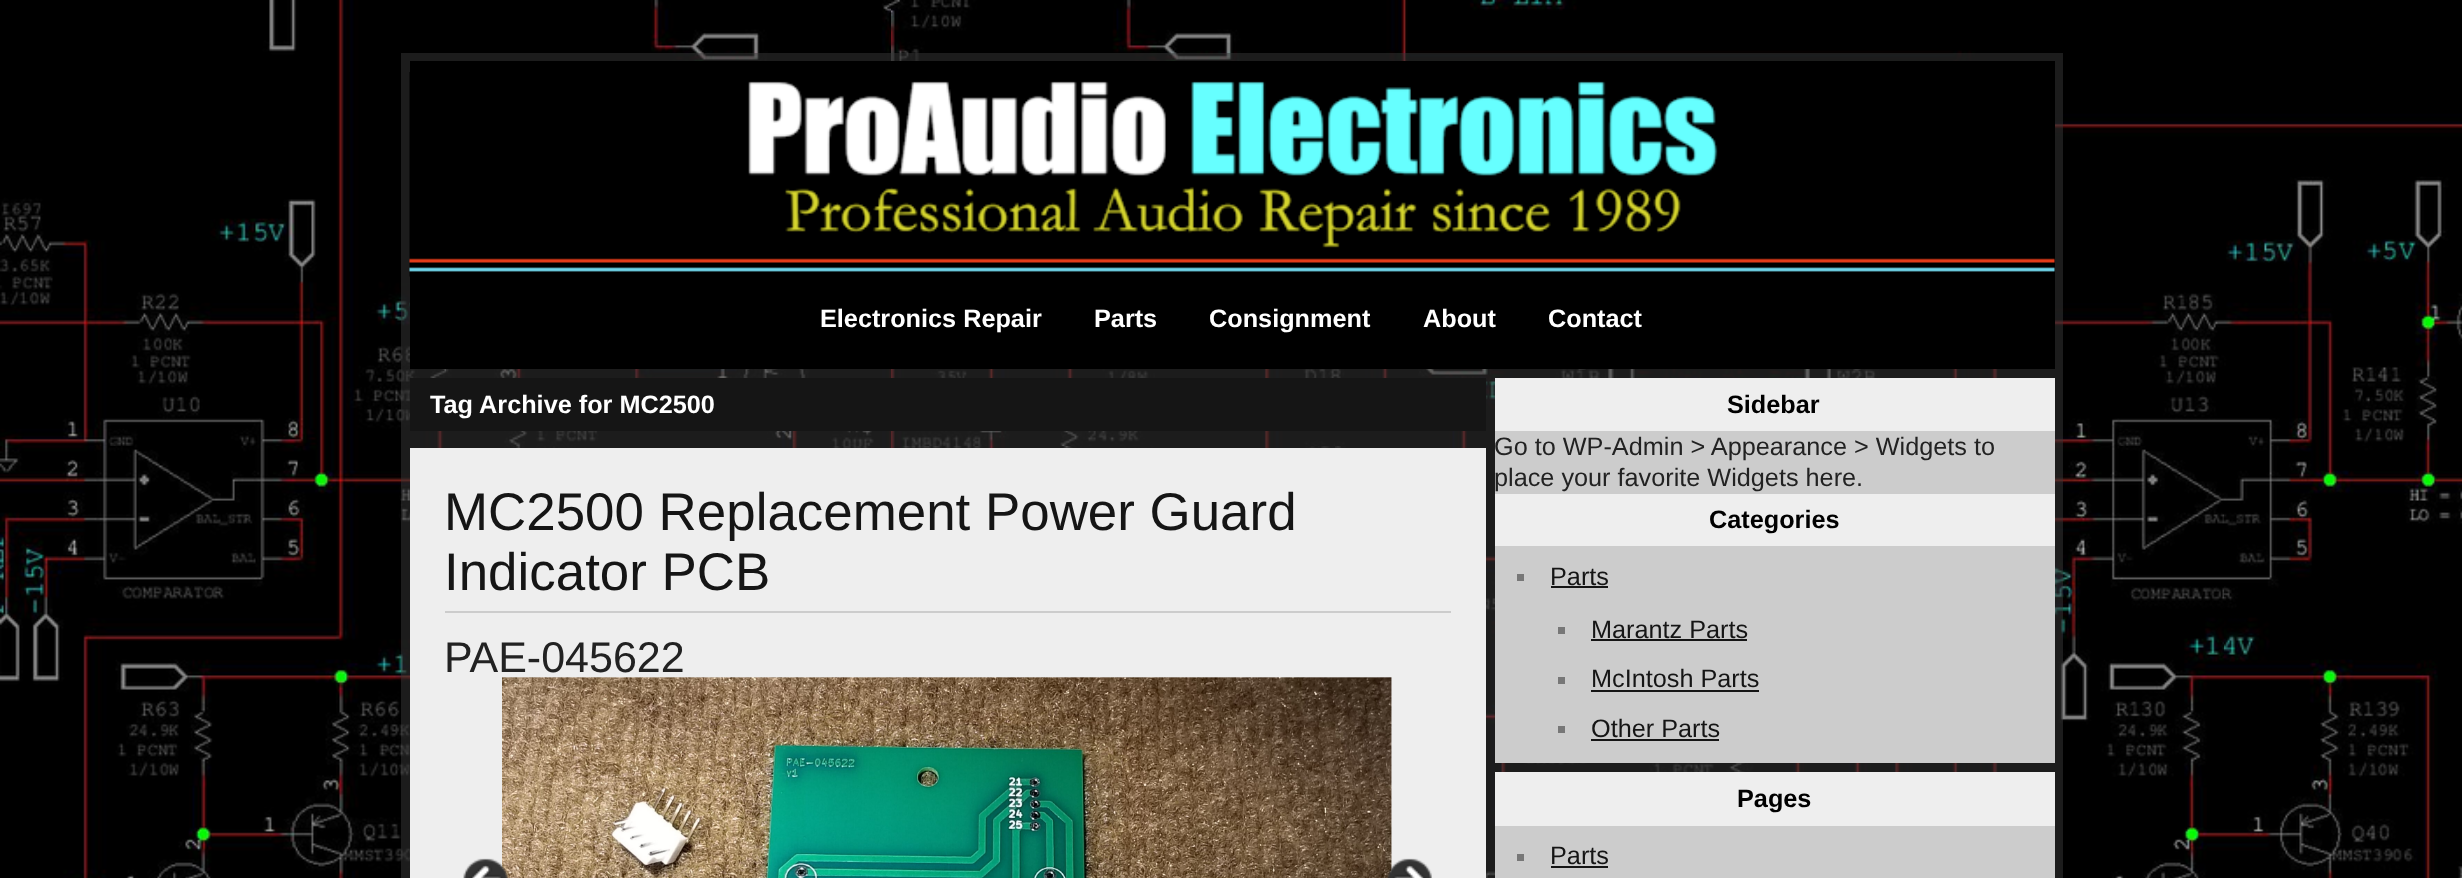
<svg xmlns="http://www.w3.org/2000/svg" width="2462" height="878">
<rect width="100%" height="100%" fill="#fff"/>
<image x="0" y="0" width="2462" height="878" href="media/1.png"/>
<rect x="401" y="53" width="1662" height="825" fill="#38383880"/>
<rect x="410" y="61" width="1645" height="308" fill="#000"/>
<image x="409" y="72" width="1646" height="205" href="media/2.png"/>
<text x="820" y="327" style="font-family:Liberation Sans;font-size:25.25px;font-weight:bold;fill:#fff">Electronics Repair</text>
<text x="1094" y="327" style="font-family:Liberation Sans;font-size:25.25px;font-weight:bold;fill:#fff">Parts</text>
<text x="1209" y="327" style="font-family:Liberation Sans;font-size:25.25px;font-weight:bold;fill:#fff">Consignment</text>
<text x="1423" y="327" style="font-family:Liberation Sans;font-size:25.25px;font-weight:bold;fill:#fff">About</text>
<text x="1548" y="327" style="font-family:Liberation Sans;font-size:25.25px;font-weight:bold;fill:#fff">Contact</text>
<rect x="410" y="378" width="1076" height="53" fill="#151515"/>
<text x="430" y="413" style="font-family:Liberation Sans;font-size:25.25px;font-weight:bold;fill:#fff">Tag Archive for MC2500</text>
<rect x="410" y="448" width="1076" height="430" fill="#eee"/>
<text x="444" y="530" style="font-family:Liberation Sans;font-size:52.9px;fill:#151515">MC2500 Replacement Power Guard</text>
<text x="444" y="590" style="font-family:Liberation Sans;font-size:52.9px;fill:#151515">Indicator PCB</text>
<rect x="445" y="611" width="1006" height="2" fill="#ccc"/>
<text x="444" y="672" style="font-family:Liberation Sans;font-size:43px;fill:#222">PAE-045622</text>
<image x="502" y="677" width="890" height="201" href="media/3.png"/>
<image x="463" y="858" width="45" height="20" href="media/4.png"/>
<image x="1387" y="858" width="45" height="20" href="media/5.png"/>
<rect x="1495" y="431" width="560" height="63" fill="#ccc"/>
<rect x="1495" y="378" width="560" height="53" fill="#eee"/>
<text x="1727" y="413" style="font-family:Liberation Sans;font-size:25.25px;font-weight:bold;fill:#000">Sidebar</text>
<text x="1494" y="455" style="font-family:Liberation Sans;font-size:25.25px;fill:#222">Go to WP-Admin &gt; Appearance &gt; Widgets to</text>
<text x="1494" y="486" style="font-family:Liberation Sans;font-size:25.25px;fill:#222">place your favorite Widgets here.</text>
<rect x="1495" y="546" width="560" height="217" fill="#ccc"/>
<rect x="1495" y="494" width="560" height="52" fill="#eee"/>
<text x="1709" y="528" style="font-family:Liberation Sans;font-size:25.25px;font-weight:bold;fill:#000">Categories</text>
<rect x="1517" y="574" width="7" height="7" fill="#777"/>
<text x="1550" y="585" style="font-family:Liberation Sans;font-size:25.25px;fill:#151515">Parts</text>
<rect x="1551" y="586" width="57" height="2" fill="#151515"/>
<rect x="1558" y="627" width="7" height="7" fill="#777"/>
<text x="1591" y="638" style="font-family:Liberation Sans;font-size:25.25px;fill:#151515">Marantz Parts</text>
<rect x="1591" y="639" width="156" height="2" fill="#151515"/>
<rect x="1558" y="677" width="7" height="7" fill="#777"/>
<text x="1591" y="687" style="font-family:Liberation Sans;font-size:25.25px;fill:#151515">McIntosh Parts</text>
<rect x="1591" y="690" width="168" height="2" fill="#151515"/>
<rect x="1558" y="726" width="7" height="7" fill="#777"/>
<text x="1591" y="737" style="font-family:Liberation Sans;font-size:25.25px;fill:#151515">Other Parts</text>
<rect x="1591" y="739" width="128" height="2" fill="#151515"/>
<rect x="1495" y="826" width="560" height="52" fill="#ccc"/>
<rect x="1495" y="772" width="560" height="54" fill="#eee"/>
<text x="1737" y="807" style="font-family:Liberation Sans;font-size:25.25px;font-weight:bold;fill:#000">Pages</text>
<rect x="1517" y="854" width="7" height="7" fill="#777"/>
<text x="1550" y="864" style="font-family:Liberation Sans;font-size:25.25px;fill:#151515">Parts</text>
<rect x="1551" y="866" width="57" height="2" fill="#151515"/>
</svg>
